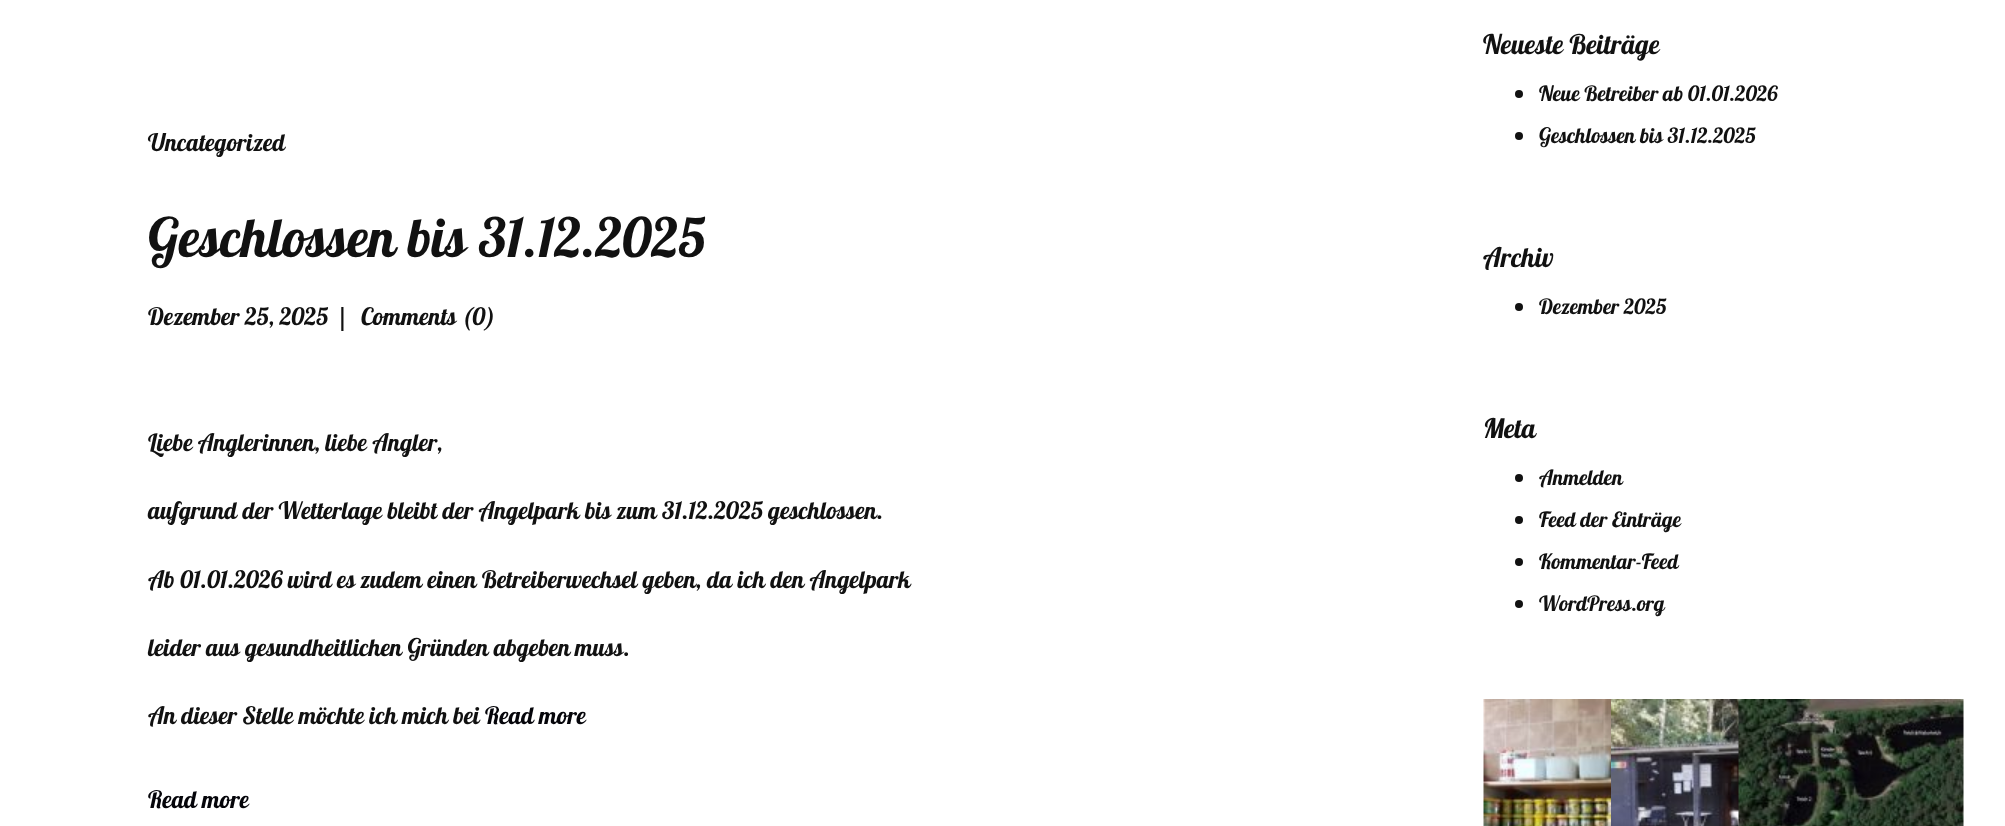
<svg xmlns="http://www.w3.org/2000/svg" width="2005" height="826">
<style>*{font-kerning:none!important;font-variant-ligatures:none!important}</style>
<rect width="100%" height="100%" fill="#fff"/>
<text x="148" y="151" style="font-family:Lobster;font-size:24px;fill:#111">Uncategorized</text>
<text x="148" y="257" style="font-family:Lobster;font-size:54px;fill:#111">Geschlossen bis 31.12.2025</text>
<text x="148" y="325" style="font-family:Lobster;font-size:24px;fill:#111">Dezember 25, 2025</text>
<text x="336" y="325" style="font-family:Lobster;font-size:24px;fill:#111">|</text>
<text x="361" y="325" style="font-family:Lobster;font-size:24px;fill:#111">Comments (0)</text>
<text x="148" y="451" style="font-family:Lobster;font-size:24px;fill:#111">Liebe Anglerinnen, liebe Angler,</text>
<text x="148" y="519" style="font-family:Lobster;font-size:24px;fill:#111">aufgrund der Wetterlage bleibt der Angelpark bis zum</text>
<text x="662" y="519" style="font-family:Lobster;font-size:24px;fill:#111">31.12.2025 geschlossen.</text>
<text x="148" y="588" style="font-family:Lobster;font-size:24px;fill:#111">Ab 01.01.2026 wird es</text>
<text x="360" y="588" style="font-family:Lobster;font-size:24px;fill:#111">zudem einen Betreiberwechsel geben,</text>
<text x="707" y="588" style="font-family:Lobster;font-size:24px;fill:#111">da ich den Angelpark</text>
<text x="148" y="656" style="font-family:Lobster;font-size:24px;fill:#111">leider aus gesundheitlichen Gründen abgeben</text>
<text x="575" y="656" style="font-family:Lobster;font-size:24px;fill:#111">muss.</text>
<text x="148" y="724" style="font-family:Lobster;font-size:24px;fill:#111">An dieser Stelle möchte ich mich bei</text>
<text x="485" y="724" style="font-family:Lobster;font-size:24px;fill:#05050a">Read more</text>
<text x="148" y="808" style="font-family:Lobster;font-size:24px;fill:#05050a">Read more</text>
<text x="1483" y="54" style="font-family:Lobster;font-size:27px;fill:#111">Neueste Beiträge</text>
<circle cx="1519" cy="94" r="4" fill="#111"/>
<text x="1539" y="101" style="font-family:Lobster;font-size:21px;fill:#111">Neue Betreiber ab 01.01.2026</text>
<circle cx="1519" cy="136" r="4" fill="#111"/>
<text x="1539" y="143" style="font-family:Lobster;font-size:21px;fill:#111">Geschlossen bis 31.12.2025</text>
<text x="1483" y="267" style="font-family:Lobster;font-size:27px;fill:#111">Archiv</text>
<circle cx="1519" cy="307" r="4" fill="#111"/>
<text x="1539" y="314" style="font-family:Lobster;font-size:21px;fill:#111">Dezember 2025</text>
<text x="1483" y="438" style="font-family:Lobster;font-size:27px;fill:#111">Meta</text>
<circle cx="1519" cy="478" r="4" fill="#111"/>
<text x="1539" y="485" style="font-family:Lobster;font-size:21px;fill:#111">Anmelden</text>
<circle cx="1519" cy="520" r="4" fill="#111"/>
<text x="1539" y="527" style="font-family:Lobster;font-size:21px;fill:#111">Feed der Einträge</text>
<circle cx="1519" cy="562" r="4" fill="#111"/>
<text x="1539" y="569" style="font-family:Lobster;font-size:21px;fill:#111">Kommentar-Feed</text>
<circle cx="1519" cy="604" r="4" fill="#111"/>
<text x="1539" y="611" style="font-family:Lobster;font-size:21px;fill:#111">WordPress.org</text>
<image x="1483" y="699" width="128" height="127" href="media/1.png"/>
<image x="1611" y="699" width="128" height="127" href="media/2.png"/>
<image x="1738" y="699" width="226" height="127" href="media/3.png"/>
</svg>
